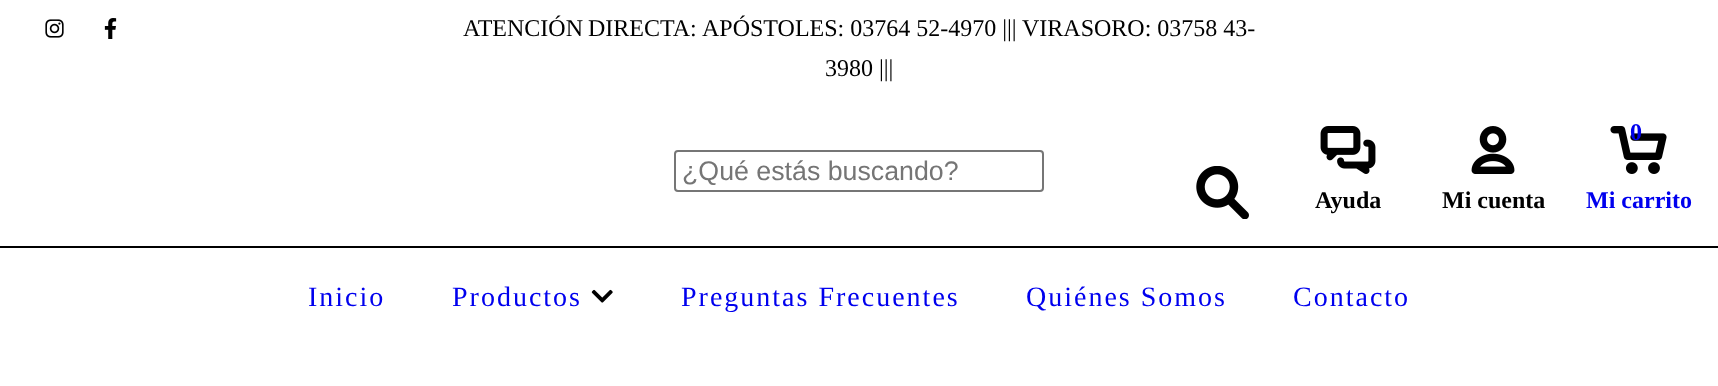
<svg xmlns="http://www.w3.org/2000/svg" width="1718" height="386">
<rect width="100%" height="100%" fill="#fff"/>
<image x="45" y="19" width="19" height="19" href="media/1.png"/>
<image x="104" y="18" width="13" height="21" href="media/2.png"/>
<text x="463" y="36" word-spacing="-1" style="font-family:Liberation Serif;font-size:24px;fill:#000">ATENCIÓN DIRECTA:</text>
<text x="702" y="36" style="font-family:Liberation Serif;font-size:24px;fill:#000">APÓSTOLES: 03764 52-4970 |||</text>
<text x="1022" y="36" style="font-family:Liberation Serif;font-size:24px;fill:#000">VIRASORO: 03758 43-</text>
<text x="825" y="76" style="font-family:Liberation Serif;font-size:24px;fill:#000">3980 |||</text>
<rect x="675" y="151" width="368" height="40" rx="3" fill="none" stroke="#767676" stroke-width="2"/>
<text x="682" y="180" style="font-family:Liberation Sans;font-size:26.75px;fill:#757575">¿Qué estás buscando?</text>
<image x="1196" y="166" width="53" height="53" href="media/3.png"/>
<image x="1320" y="126" width="56" height="48" href="media/4.png"/>
<text x="1315" y="208" style="font-family:Liberation Serif;font-size:24px;font-weight:bold;fill:#000">Ayuda</text>
<image x="1471" y="126" width="44" height="48" href="media/5.png"/>
<text x="1442" y="208" style="font-family:Liberation Serif;font-size:24px;font-weight:bold;fill:#000">Mi cuenta</text>
<image x="1610" y="126" width="57" height="48" href="media/6.png"/>
<text x="1630" y="140" style="font-family:Liberation Serif;font-size:24px;font-weight:bold;fill:#00e">0</text>
<text x="1586" y="208" style="font-family:Liberation Serif;font-size:24px;font-weight:bold;fill:#00e">Mi carrito</text>
<rect y="246" width="1718" height="2" fill="#000"/>
<text x="308" y="306" style="font-family:Liberation Serif;font-size:28px;letter-spacing:2px;fill:#00e">Inicio</text>
<text x="452" y="306" style="font-family:Liberation Serif;font-size:28px;letter-spacing:2px;fill:#00e">Productos</text>
<image x="591" y="289" width="22" height="14" href="media/7.png"/>
<text x="681" y="306" style="font-family:Liberation Serif;font-size:28px;letter-spacing:2px;fill:#00e">Preguntas Frecuentes</text>
<text x="1026" y="306" style="font-family:Liberation Serif;font-size:28px;letter-spacing:2px;fill:#00e">Quiénes Somos</text>
<text x="1293" y="306" style="font-family:Liberation Serif;font-size:28px;letter-spacing:2px;fill:#00e">Contacto</text>
</svg>
